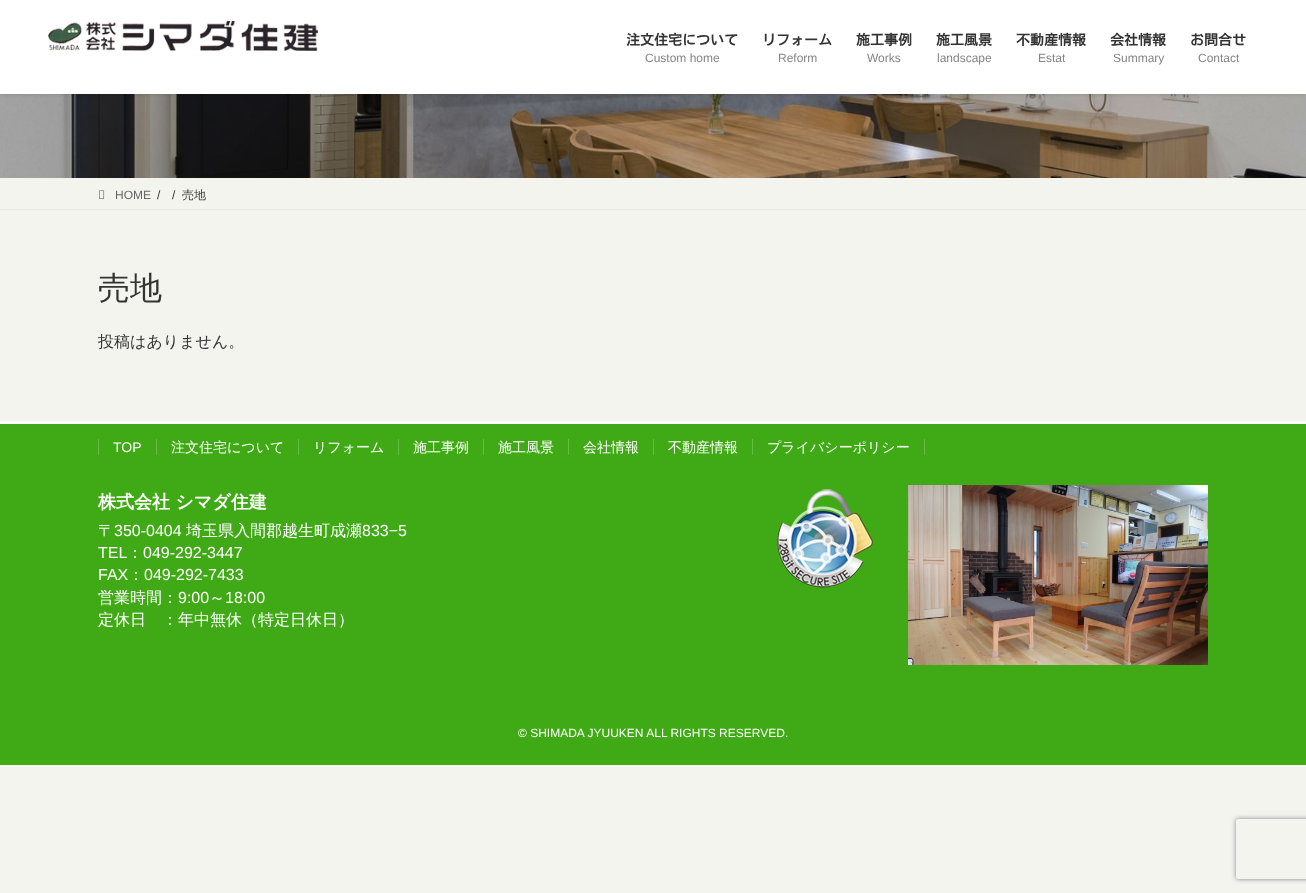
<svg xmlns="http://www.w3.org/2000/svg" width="1306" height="893">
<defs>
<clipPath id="clip1"><path d="M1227 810h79v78h-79zm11 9h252c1 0 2 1 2 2v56c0 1-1 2-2 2h-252c-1 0-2-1-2-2v-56c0-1 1-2 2-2z" clip-rule="evenodd"/></clipPath>
</defs>
<rect width="100%" height="100%" fill="#f4f4ef"/>
<image x="0" y="94" width="1306" height="84" href="media/2.png"/>
<rect y="1" width="1306" height="94" fill="#0000001a" filter="blur(1.5px)"/>
<rect width="1306" height="94" fill="#fff"/>
<image x="48" y="21" width="270" height="30" href="media/1.png"/>
<text x="626" y="45" style="font-family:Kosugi;font-size:14px;font-weight:bold;fill:#333">注文住宅について</text>
<text x="645" y="62" style="font-family:Liberation Sans;font-size:12px;fill:#858585">Custom home</text>
<text x="762" y="45" style="font-family:Kosugi;font-size:14px;font-weight:bold;fill:#333">リフォーム</text>
<text x="778" y="62" style="font-family:Liberation Sans;font-size:12px;fill:#858585">Reform</text>
<text x="856" y="45" style="font-family:Kosugi;font-size:14px;font-weight:bold;fill:#333">施工事例</text>
<text x="867" y="62" style="font-family:Liberation Sans;font-size:12px;fill:#858585">Works</text>
<text x="936" y="45" style="font-family:Kosugi;font-size:14px;font-weight:bold;fill:#333">施工風景</text>
<text x="937" y="62" style="font-family:Liberation Sans;font-size:12px;fill:#858585">landscape</text>
<text x="1016" y="45" style="font-family:Kosugi;font-size:14px;font-weight:bold;fill:#333">不動産情報</text>
<text x="1038" y="62" style="font-family:Liberation Sans;font-size:12px;fill:#858585">Estat</text>
<text x="1110" y="45" style="font-family:Kosugi;font-size:14px;font-weight:bold;fill:#333">会社情報</text>
<text x="1113" y="62" style="font-family:Liberation Sans;font-size:12px;fill:#858585">Summary</text>
<text x="1190" y="45" style="font-family:Kosugi;font-size:14px;font-weight:bold;fill:#333">お問合せ</text>
<text x="1198" y="62" style="font-family:Liberation Sans;font-size:12px;fill:#858585">Contact</text>
<rect y="209" width="1306" height="1" fill="#e8e8e3"/>
<image x="99" y="190" width="6" height="9" href="media/3.png"/>
<text x="115" y="199" style="font-family:Liberation Sans;font-size:12px;fill:#666">HOME</text>
<text x="157" y="199" style="font-family:Liberation Sans;font-size:12px;fill:#333">/</text>
<text x="172" y="199" style="font-family:Liberation Sans;font-size:12px;fill:#333">/</text>
<text x="182" y="199" style="font-family:WenQuanYi Zen Hei;font-size:12px;font-weight:500;fill:#333">売地</text>
<text x="98" y="299" style="font-family:WenQuanYi Zen Hei;font-size:32px;font-weight:500;fill:#333">売地</text>
<text x="98" y="347" style="font-family:WenQuanYi Zen Hei;font-size:16px;font-weight:500;fill:#333">投稿はありません。</text>
<rect y="424" width="1306" height="341" fill="#40aa16"/>
<rect y="421" width="1306" height="3" fill="#fff"/>
<text x="113" y="452" style="font-family:Liberation Sans;font-size:14px;fill:#fff">TOP</text>
<rect x="98" y="439" width="1" height="16" fill="#66bb45"/>
<text x="171" y="452" style="font-family:WenQuanYi Zen Hei;font-size:14px;font-weight:500;fill:#fff">注文住宅について</text>
<rect x="156" y="439" width="1" height="16" fill="#66bb45"/>
<text x="313" y="452" style="font-family:WenQuanYi Zen Hei;font-size:14px;font-weight:500;fill:#fff">リフォーム</text>
<rect x="298" y="439" width="1" height="16" fill="#66bb45"/>
<text x="413" y="452" style="font-family:WenQuanYi Zen Hei;font-size:14px;font-weight:500;fill:#fff">施工事例</text>
<rect x="398" y="439" width="1" height="16" fill="#66bb45"/>
<text x="498" y="452" style="font-family:WenQuanYi Zen Hei;font-size:14px;font-weight:500;fill:#fff">施工風景</text>
<rect x="483" y="439" width="1" height="16" fill="#66bb45"/>
<text x="583" y="452" style="font-family:WenQuanYi Zen Hei;font-size:14px;font-weight:500;fill:#fff">会社情報</text>
<rect x="568" y="439" width="1" height="16" fill="#66bb45"/>
<text x="668" y="452" style="font-family:WenQuanYi Zen Hei;font-size:14px;font-weight:500;fill:#fff">不動産情報</text>
<rect x="653" y="439" width="1" height="16" fill="#66bb45"/>
<text x="767" y="452" style="font-family:WenQuanYi Zen Hei;font-size:14px;font-weight:500;fill:#fff">プライバシーポリシー</text>
<rect x="924" y="439" width="1" height="16" fill="#66bb45"/>
<rect x="752" y="439" width="1" height="16" fill="#66bb45"/>
<text x="98" y="508" style="font-family:WenQuanYi Zen Hei;font-size:18px;font-weight:bold;fill:#fff">株式会社 シマダ住建</text>
<image x="777" y="489" width="96" height="99" href="media/4.png"/>
<text x="98" y="536" style="font-family:WenQuanYi Zen Hei;font-size:16px;font-weight:500;fill:#fff">〒</text>
<text x="114" y="536" style="font-family:Liberation Sans;font-size:16px;fill:#fff">350-0404</text>
<text x="186" y="536" style="font-family:WenQuanYi Zen Hei;font-size:16px;font-weight:500;fill:#fff">埼玉県入間郡越生町成瀬</text>
<text x="362" y="536" style="font-family:Liberation Sans;font-size:16px;fill:#fff">833−5</text>
<text x="98" y="558" style="font-family:Liberation Sans;font-size:16px;fill:#fff">TEL</text>
<text x="127" y="558" style="font-family:WenQuanYi Zen Hei;font-size:16px;font-weight:500;fill:#fff">：</text>
<text x="143" y="558" style="font-family:Liberation Sans;font-size:16px;fill:#fff">049-292-3447</text>
<text x="98" y="580" style="font-family:Liberation Sans;font-size:16px;fill:#fff">FAX</text>
<text x="128" y="580" style="font-family:WenQuanYi Zen Hei;font-size:16px;font-weight:500;fill:#fff">：</text>
<text x="144" y="580" style="font-family:Liberation Sans;font-size:16px;fill:#fff">049-292-7433</text>
<text x="98" y="603" style="font-family:WenQuanYi Zen Hei;font-size:16px;font-weight:500;fill:#fff">営業時間：</text>
<text x="178" y="603" style="font-family:Liberation Sans;font-size:16px;fill:#fff">9:00</text>
<text x="209" y="603" style="font-family:WenQuanYi Zen Hei;font-size:16px;font-weight:500;fill:#fff">～</text>
<text x="225" y="603" style="font-family:Liberation Sans;font-size:16px;fill:#fff">18:00</text>
<text x="98" y="625" style="font-family:WenQuanYi Zen Hei;font-size:16px;font-weight:500;fill:#fff">定休日　：年中無休（特定日休日）</text>
<image x="908" y="485" width="300" height="180" href="media/5.png"/>
<text x="518" y="737" style="font-family:Liberation Sans;font-size:12px;fill:#fff">© SHIMADA JYUUKEN ALL RIGHTS RESERVED.</text>
<g clip-path="url(#clip1)">
<rect x="1236" y="819" width="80" height="60" rx="2" fill="#808080" filter="blur(2.5px)"/>
</g>
</svg>
